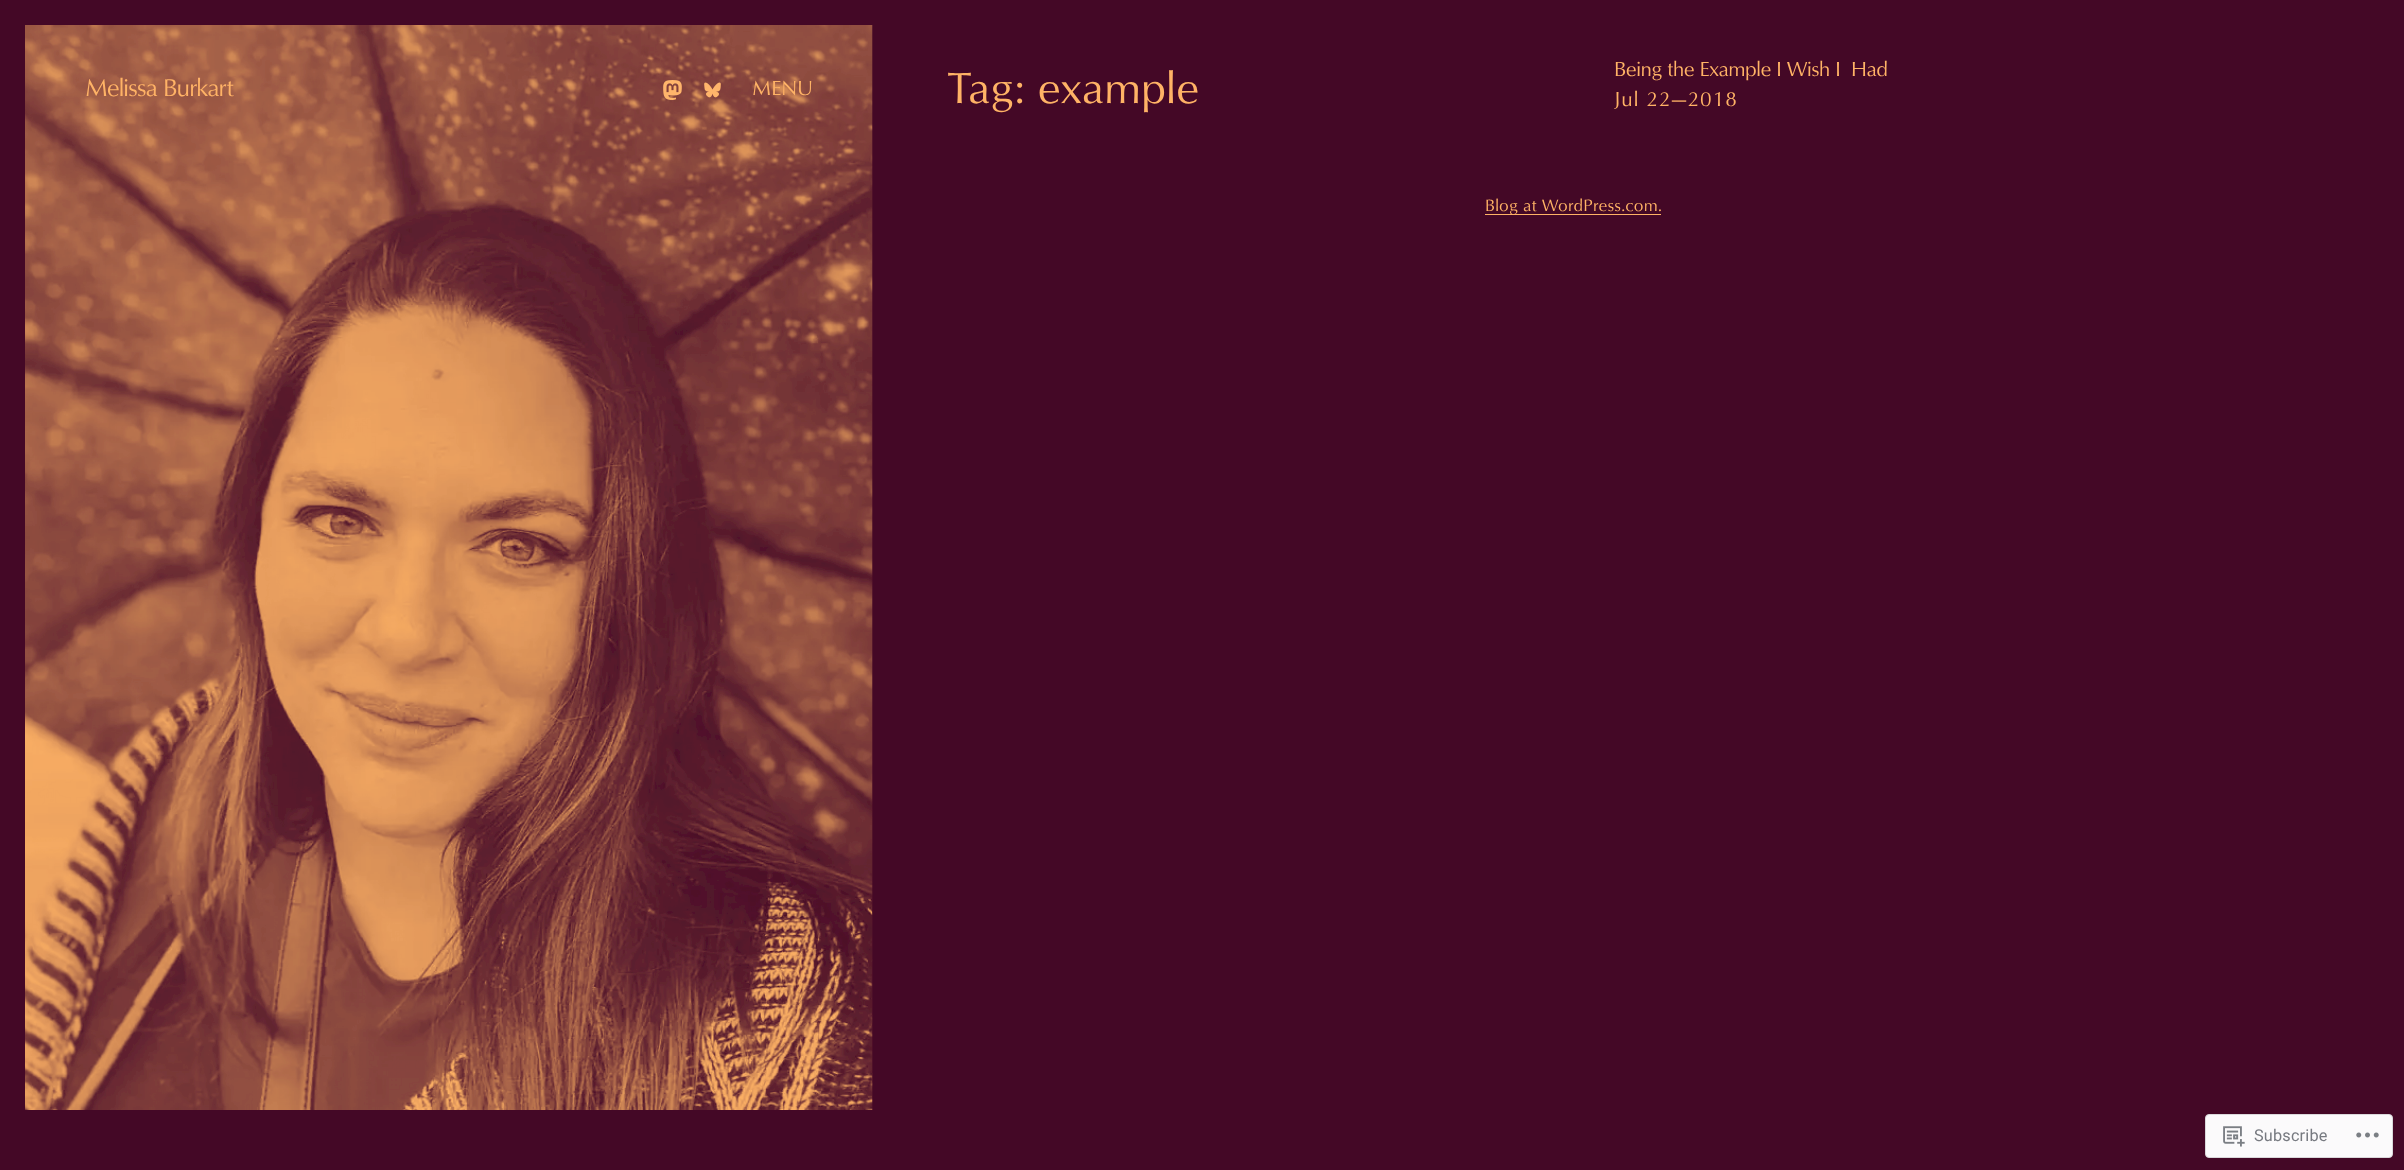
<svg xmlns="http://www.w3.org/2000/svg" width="2404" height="1170">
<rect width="100%" height="100%" fill="#440826"/>
<rect x="872" y="25" width="1" height="1085" fill="#480b27"/>
<image x="25" y="25" width="848" height="1085" href="media/1.png"/>
<text x="85" y="96" style="font-family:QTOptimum;font-size:25px;font-weight:500;letter-spacing:-1px;fill:#ffb366">Melissa Burkart</text>
<image x="663" y="80" width="19" height="20" href="media/2.png"/>
<image x="704" y="82" width="17" height="16" href="media/3.png"/>
<text x="752" y="95" style="font-family:QTOptimum;font-size:21px;font-weight:500;fill:#ffb366">MENU</text>
<text x="948" y="103" style="font-family:QTOptimum;font-size:45px;font-weight:500;fill:#ffb366">Tag: example</text>
<text x="1614" y="76" style="font-family:QTOptimum;font-size:21px;font-weight:500;letter-spacing:-0.5px;fill:#ffb366">Being the Example I Wish I</text>
<text x="1851" y="76" style="font-family:QTOptimum;font-size:21px;font-weight:500;letter-spacing:-0.5px;fill:#ffb366">Had</text>
<text x="1614" y="106" style="font-family:QTOptimum;font-size:21px;font-weight:500;letter-spacing:1px;fill:#ffb366">Jul 22—2018</text>
<rect x="1485" y="214" width="176" height="1" fill="#ffb366"/>
<text x="1485" y="211" style="font-family:QTOptimum;font-size:17px;font-weight:500;letter-spacing:0.2px;fill:#ffb366">Blog at WordPress.com.</text>
<rect x="2205.5" y="1114.5" width="187" height="43" rx="3.5" fill="#fbfafb" stroke="#d9d8da"/>
<image x="2223" y="1126" width="22" height="21" href="media/4.png"/>
<text x="2254" y="1141" style="font-family:Roboto;font-size:16.25px;letter-spacing:0.2px;fill:#777a80">Subscribe</text>
<image x="2356" y="1132" width="23" height="6" href="media/5.png"/>
</svg>
